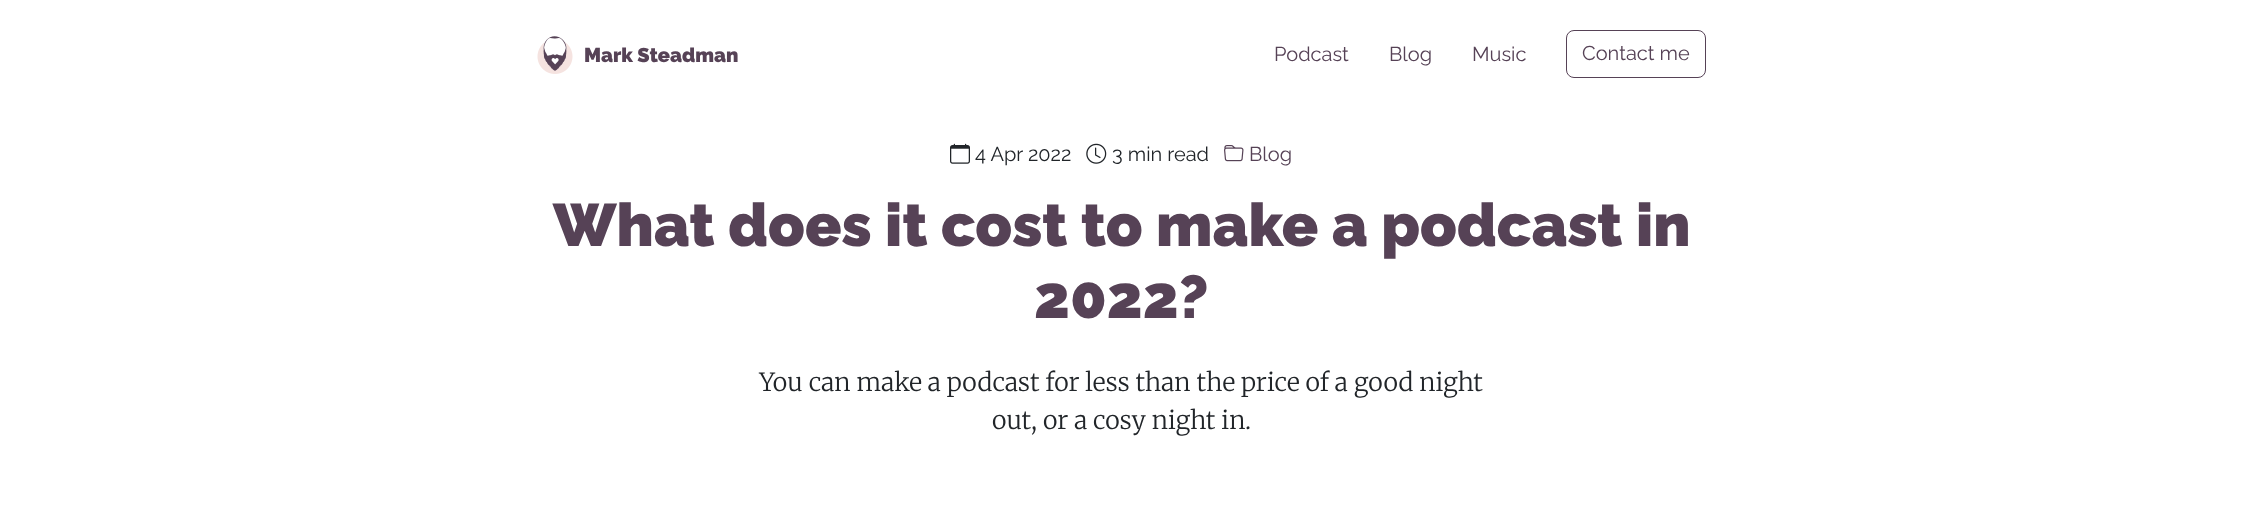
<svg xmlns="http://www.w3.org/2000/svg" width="2242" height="522">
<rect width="100%" height="100%" fill="#fff"/>
<image x="537" y="36" width="36" height="38" href="media/1.png"/>
<text x="584" y="62" style="font-family:Raleway;font-size:20px;font-weight:900;fill:#564256">Mark Steadman</text>
<text x="1274" y="61" style="font-family:Raleway;font-size:20px;fill:#564256">Podcast</text>
<text x="1389" y="61" style="font-family:Raleway;font-size:20px;fill:#564256">Blog</text>
<text x="1472" y="61" style="font-family:Raleway;font-size:20px;fill:#564256">Music</text>
<rect x="1566.5" y="30.5" width="139" height="47" rx="7.5" fill="none" stroke="#564256"/>
<text x="1582" y="60" style="font-family:Raleway;font-size:20px;fill:#564256">Contact me</text>
<image x="950" y="143" width="20" height="21" href="media/2.png"/>
<text x="975" y="161" style="font-family:Raleway;font-size:20px;fill:#212529">4 Apr 2022</text>
<image x="1086" y="143" width="21" height="21" href="media/3.png"/>
<text x="1112" y="161" style="font-family:Raleway;font-size:20px;fill:#212529">3 min read</text>
<image x="1224" y="145" width="20" height="17" href="media/4.png"/>
<text x="1249" y="161" style="font-family:Raleway;font-size:20px;fill:#564256">Blog</text>
<text x="553" y="246" style="font-family:Raleway;font-size:60px;font-weight:900;fill:#564256">What does it cost to make a podcast in</text>
<text x="1034" y="318" style="font-family:Raleway;font-size:60px;font-weight:900;fill:#564256">2022?</text>
<text x="759" y="391" style="font-family:Merriweather;font-size:25px;font-weight:300;fill:#212529">You can make a podcast for less than the price of a good night</text>
<text x="992" y="429" style="font-family:Merriweather;font-size:25px;font-weight:300;fill:#212529">out, or a cosy night in.</text>
</svg>
